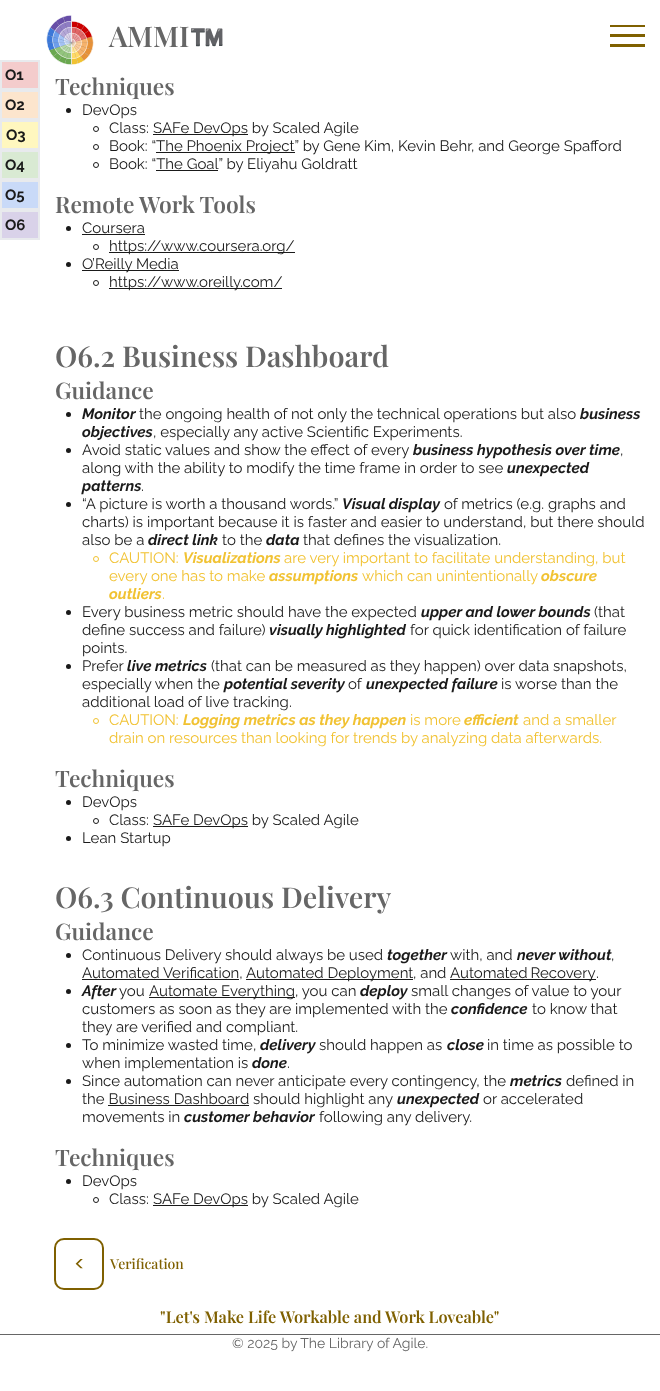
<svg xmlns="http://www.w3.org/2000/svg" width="660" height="1391">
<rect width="100%" height="100%" fill="#fff"/>
<image x="46" y="15" width="48" height="50" href="media/1.png"/>
<text x="109" y="47" style="font-family:Playfair Display;font-size:28.5px;font-weight:600;fill:#666">AMMI</text>
<text x="189" y="47" style="font-family:Noto Color Emoji;font-size:28.5px;font-weight:bold;fill:#b7b7b7">™️</text>
<rect x="610" y="44" width="35" height="3" fill="#7f6000"/>
<rect x="610" y="25" width="35" height="2" fill="#7f6000"/>
<rect x="610" y="34" width="35" height="3" fill="#7f6000"/>
<rect x="1" y="61" width="38" height="28" fill="#f4cccc" stroke="#e8eaed" stroke-width="2"/>
<text x="5" y="80" style="font-family:Raleway;font-size:15px;font-weight:bold;fill:#1a1a1a">O1</text>
<rect x="1" y="91" width="38" height="28" fill="#fce5cd" stroke="#e8eaed" stroke-width="2"/>
<text x="5" y="110" style="font-family:Raleway;font-size:15px;font-weight:bold;fill:#1a1a1a">O2</text>
<rect x="1" y="121" width="38" height="28" fill="#fff7bf" stroke="#e8eaed" stroke-width="2"/>
<text x="6" y="140" style="font-family:Raleway;font-size:15px;font-weight:bold;fill:#1a1a1a">O3</text>
<rect x="1" y="151" width="38" height="28" fill="#d9ead3" stroke="#e8eaed" stroke-width="2"/>
<text x="5" y="170" style="font-family:Raleway;font-size:15px;font-weight:bold;fill:#1a1a1a">O4</text>
<rect x="1" y="181" width="38" height="28" fill="#c9daf8" stroke="#e8eaed" stroke-width="2"/>
<text x="5" y="200" style="font-family:Raleway;font-size:15px;font-weight:bold;fill:#1a1a1a">O5</text>
<rect x="1" y="211" width="38" height="28" fill="#d9d2e9" stroke="#e8eaed" stroke-width="2"/>
<text x="5" y="230" style="font-family:Raleway;font-size:15px;font-weight:bold;fill:#1a1a1a">O6</text>
<text x="55" y="95" style="font-family:Playfair Display;font-size:22.75px;font-weight:600;fill:#666">Techniques</text>
<circle cx="68.5" cy="110.5" r="2.5" fill="#1a1a1a"/>
<text x="82" y="115" style="font-family:Raleway;font-size:15px;fill:#1a1a1a">DevOps</text>
<circle cx="96" cy="129" r="2.5" fill="none" stroke="#1a1a1a"/>
<text x="109" y="133" style="font-family:Raleway;font-size:15px;fill:#1a1a1a">Class:</text>
<rect x="153" y="134" width="95" height="1" fill="#1a1a1a"/>
<text x="153" y="133" style="font-family:Raleway;font-size:15px;fill:#1a1a1a">SAFe DevOps by Scaled Agile</text>
<circle cx="96" cy="147" r="2.5" fill="none" stroke="#1a1a1a"/>
<text x="109" y="151" style="font-family:Raleway;font-size:15px;fill:#1a1a1a">Book: “</text>
<rect x="156" y="152" width="139" height="1" fill="#1a1a1a"/>
<text x="156" y="151" style="font-family:Raleway;font-size:15px;fill:#1a1a1a">The Phoenix Project” by Gene Kim, Kevin Behr, and George Spafford</text>
<circle cx="96" cy="165" r="2.5" fill="none" stroke="#1a1a1a"/>
<text x="109" y="169" style="font-family:Raleway;font-size:15px;fill:#1a1a1a">Book: “The Goal” by Eliyahu Goldratt</text>
<rect x="156" y="170" width="62" height="1" fill="#1a1a1a"/>
<text x="55" y="213" style="font-family:Playfair Display;font-size:22.75px;font-weight:600;fill:#666">Remote Work Tools</text>
<circle cx="68.5" cy="228.5" r="2.5" fill="#1a1a1a"/>
<text x="82" y="233" style="font-family:Raleway;font-size:15px;fill:#1a1a1a">Coursera</text>
<rect x="82" y="234" width="63" height="1" fill="#1a1a1a"/>
<circle cx="96" cy="247" r="2.5" fill="none" stroke="#1a1a1a"/>
<rect x="109" y="252" width="186" height="1" fill="#1a1a1a"/>
<text x="109" y="251" style="font-family:Raleway;font-size:15px;fill:#1a1a1a">https://www.coursera.org/</text>
<circle cx="68.5" cy="264.5" r="2.5" fill="#1a1a1a"/>
<rect x="82" y="270" width="97" height="1" fill="#1a1a1a"/>
<text x="82" y="269" style="font-family:Raleway;font-size:15px;fill:#1a1a1a">O’Reilly Media</text>
<circle cx="96" cy="283" r="2.5" fill="none" stroke="#1a1a1a"/>
<rect x="109" y="288" width="173" height="1" fill="#1a1a1a"/>
<text x="109" y="287" style="font-family:Raleway;font-size:15px;fill:#1a1a1a">https://www.oreilly.com/</text>
<text x="55" y="367" style="font-family:Playfair Display;font-size:28.75px;font-weight:600;fill:#666">O6.2 Business Dashboard</text>
<text x="55" y="399" style="font-family:Playfair Display;font-size:22.75px;font-weight:600;fill:#666">Guidance</text>
<circle cx="68.5" cy="414.5" r="2.5" fill="#1a1a1a"/>
<text x="82" y="419" style="font-family:Raleway;font-size:15px;font-weight:bold;font-style:italic;fill:#1a1a1a">Monitor</text>
<text x="139" y="419" style="font-family:Raleway;font-size:15px;fill:#1a1a1a">the ongoing health of not only the technical operations but also</text>
<text x="580" y="419" style="font-family:Raleway;font-size:15px;font-weight:bold;font-style:italic;fill:#1a1a1a">business</text>
<text x="82" y="437" style="font-family:Raleway;font-size:15px;font-weight:bold;font-style:italic;fill:#1a1a1a">objectives</text>
<text x="153" y="437" style="font-family:Raleway;font-size:15px;fill:#1a1a1a">, especially any active Scientific Experiments.</text>
<circle cx="68.5" cy="450.5" r="2.5" fill="#1a1a1a"/>
<text x="82" y="455" style="font-family:Raleway;font-size:15px;fill:#1a1a1a">Avoid static values and show the effect of every</text>
<text x="413" y="455" style="font-family:Raleway;font-size:15px;font-weight:bold;font-style:italic;fill:#1a1a1a">business hypothesis over time</text>
<text x="620" y="455" style="font-family:Raleway;font-size:15px;fill:#1a1a1a">,</text>
<text x="82" y="473" style="font-family:Raleway;font-size:15px;fill:#1a1a1a">along with the ability to modify the time frame in order to see</text>
<text x="507" y="473" style="font-family:Raleway;font-size:15px;font-weight:bold;font-style:italic;fill:#1a1a1a">unexpected</text>
<text x="82" y="491" style="font-family:Raleway;font-size:15px;font-weight:bold;font-style:italic;fill:#1a1a1a">patterns</text>
<text x="141" y="491" style="font-family:Raleway;font-size:15px;fill:#1a1a1a">.</text>
<circle cx="68.5" cy="504.5" r="2.5" fill="#1a1a1a"/>
<text x="82" y="509" style="font-family:Raleway;font-size:15px;fill:#1a1a1a">“A picture is worth a thousand words.”</text>
<text x="342" y="509" style="font-family:Raleway;font-size:15px;font-weight:bold;font-style:italic;fill:#1a1a1a">Visual display</text>
<text x="444" y="509" style="font-family:Raleway;font-size:15px;fill:#1a1a1a">of metrics (e.g. graphs and</text>
<text x="82" y="527" style="font-family:Raleway;font-size:15px;fill:#1a1a1a">charts) is important because it is faster and easier to understand, but there should</text>
<text x="82" y="545" style="font-family:Raleway;font-size:15px;fill:#1a1a1a">also be a</text>
<text x="148" y="545" style="font-family:Raleway;font-size:15px;font-weight:bold;font-style:italic;fill:#1a1a1a">direct link</text>
<text x="222" y="545" style="font-family:Raleway;font-size:15px;fill:#1a1a1a">to the</text>
<text x="266" y="545" style="font-family:Raleway;font-size:15px;font-weight:bold;font-style:italic;fill:#1a1a1a">data</text>
<text x="303" y="545" style="font-family:Raleway;font-size:15px;fill:#1a1a1a">that defines the visualization.</text>
<circle cx="96" cy="559" r="2.5" fill="none" stroke="#f1c232"/>
<text x="109" y="563" style="font-family:Raleway;font-size:15px;fill:#f1c232">CAUTION:</text>
<text x="183" y="563" style="font-family:Raleway;font-size:15px;font-weight:bold;font-style:italic;fill:#f1c232">Visualizations</text>
<text x="284" y="563" style="font-family:Raleway;font-size:15px;fill:#f1c232">are very important to facilitate understanding, but</text>
<text x="109" y="581" style="font-family:Raleway;font-size:15px;fill:#f1c232">every one has to make</text>
<text x="269" y="581" style="font-family:Raleway;font-size:15px;font-weight:bold;font-style:italic;fill:#f1c232">assumptions</text>
<text x="362" y="581" style="font-family:Raleway;font-size:15px;fill:#f1c232">which can unintentionally</text>
<text x="541" y="581" style="font-family:Raleway;font-size:15px;font-weight:bold;font-style:italic;fill:#f1c232">obscure</text>
<text x="109" y="599" style="font-family:Raleway;font-size:15px;font-weight:bold;font-style:italic;fill:#f1c232">outliers</text>
<text x="162" y="599" style="font-family:Raleway;font-size:15px;fill:#f1c232">.</text>
<circle cx="68.5" cy="612.5" r="2.5" fill="#1a1a1a"/>
<text x="82" y="617" style="font-family:Raleway;font-size:15px;fill:#1a1a1a">Every business metric should have the expected</text>
<text x="421" y="617" style="font-family:Raleway;font-size:15px;font-weight:bold;font-style:italic;fill:#1a1a1a">upper and lower bounds</text>
<text x="594" y="617" style="font-family:Raleway;font-size:15px;fill:#1a1a1a">(that</text>
<text x="82" y="635" style="font-family:Raleway;font-size:15px;fill:#1a1a1a">define success and failure)</text>
<text x="269" y="635" style="font-family:Raleway;font-size:15px;font-weight:bold;font-style:italic;fill:#1a1a1a">visually highlighted</text>
<text x="410" y="635" style="font-family:Raleway;font-size:15px;fill:#1a1a1a">for quick identification of failure</text>
<text x="82" y="653" style="font-family:Raleway;font-size:15px;fill:#1a1a1a">points.</text>
<circle cx="68.5" cy="666.5" r="2.5" fill="#1a1a1a"/>
<text x="82" y="671" style="font-family:Raleway;font-size:15px;fill:#1a1a1a">Prefer</text>
<text x="127" y="671" style="font-family:Raleway;font-size:15px;font-weight:bold;font-style:italic;fill:#1a1a1a">live metrics</text>
<text x="211" y="671" style="font-family:Raleway;font-size:15px;fill:#1a1a1a">(that can be measured as they happen) over data snapshots,</text>
<text x="82" y="689" style="font-family:Raleway;font-size:15px;fill:#1a1a1a">especially when the</text>
<text x="224" y="689" style="font-family:Raleway;font-size:15px;font-weight:bold;font-style:italic;fill:#1a1a1a">potential severity</text>
<text x="348" y="689" style="font-family:Raleway;font-size:15px;fill:#1a1a1a">of</text>
<text x="366" y="689" style="font-family:Raleway;font-size:15px;font-weight:bold;font-style:italic;fill:#1a1a1a">unexpected failure</text>
<text x="501" y="689" style="font-family:Raleway;font-size:15px;fill:#1a1a1a">is worse than the</text>
<text x="82" y="707" style="font-family:Raleway;font-size:15px;fill:#1a1a1a">additional load of live tracking.</text>
<circle cx="96" cy="721" r="2.5" fill="none" stroke="#f1c232"/>
<text x="109" y="725" style="font-family:Raleway;font-size:15px;fill:#f1c232">CAUTION:</text>
<text x="183" y="725" style="font-family:Raleway;font-size:15px;font-weight:bold;font-style:italic;fill:#f1c232">Logging metrics as they happen</text>
<text x="410" y="725" style="font-family:Raleway;font-size:15px;fill:#f1c232">is more</text>
<text x="464" y="725" style="font-family:Raleway;font-size:15px;font-weight:bold;font-style:italic;fill:#f1c232">efficient</text>
<text x="523" y="725" style="font-family:Raleway;font-size:15px;fill:#f1c232">and a smaller</text>
<text x="109" y="743" style="font-family:Raleway;font-size:15px;fill:#f1c232">drain on resources than looking for trends by analyzing data afterwards.</text>
<text x="55" y="787" style="font-family:Playfair Display;font-size:22.75px;font-weight:600;fill:#666">Techniques</text>
<circle cx="68.5" cy="802.5" r="2.5" fill="#1a1a1a"/>
<text x="82" y="807" style="font-family:Raleway;font-size:15px;fill:#1a1a1a">DevOps</text>
<circle cx="96" cy="821" r="2.5" fill="none" stroke="#1a1a1a"/>
<text x="109" y="825" style="font-family:Raleway;font-size:15px;fill:#1a1a1a">Class:</text>
<rect x="153" y="826" width="95" height="1" fill="#1a1a1a"/>
<text x="153" y="825" style="font-family:Raleway;font-size:15px;fill:#1a1a1a">SAFe DevOps by Scaled Agile</text>
<circle cx="68.5" cy="838.5" r="2.5" fill="#1a1a1a"/>
<text x="82" y="843" style="font-family:Raleway;font-size:15px;fill:#1a1a1a">Lean Startup</text>
<text x="55" y="908" style="font-family:Playfair Display;font-size:28.75px;font-weight:600;fill:#666">O6.3 Continuous Delivery</text>
<text x="55" y="940" style="font-family:Playfair Display;font-size:22.75px;font-weight:600;fill:#666">Guidance</text>
<circle cx="68.5" cy="955.5" r="2.5" fill="#1a1a1a"/>
<text x="82" y="960" style="font-family:Raleway;font-size:15px;fill:#1a1a1a">Continuous Delivery should always be used</text>
<text x="387" y="960" style="font-family:Raleway;font-size:15px;font-weight:bold;font-style:italic;fill:#1a1a1a">together</text>
<text x="450" y="960" style="font-family:Raleway;font-size:15px;fill:#1a1a1a">with, and</text>
<text x="517" y="960" style="font-family:Raleway;font-size:15px;font-weight:bold;font-style:italic;fill:#1a1a1a">never without</text>
<text x="611" y="960" style="font-family:Raleway;font-size:15px;fill:#1a1a1a">,</text>
<rect x="82" y="979" width="157" height="1" fill="#1a1a1a"/>
<text x="82" y="978" style="font-family:Raleway;font-size:15px;fill:#1a1a1a">Automated Verification,</text>
<rect x="246" y="979" width="167" height="1" fill="#1a1a1a"/>
<text x="246" y="978" style="font-family:Raleway;font-size:15px;fill:#1a1a1a">Automated Deployment</text>
<text x="413" y="978" style="font-family:Raleway;font-size:15px;fill:#1a1a1a">, and</text>
<rect x="450" y="979" width="146" height="1" fill="#1a1a1a"/>
<text x="450" y="978" word-spacing="-1" style="font-family:Raleway;font-size:15px;fill:#1a1a1a">Automated Recovery</text>
<text x="596" y="978" style="font-family:Raleway;font-size:15px;fill:#1a1a1a">.</text>
<circle cx="68.5" cy="991.5" r="2.5" fill="#1a1a1a"/>
<text x="82" y="996" style="font-family:Raleway;font-size:15px;font-weight:bold;font-style:italic;fill:#1a1a1a">After</text>
<text x="119" y="996" style="font-family:Raleway;font-size:15px;fill:#1a1a1a">you</text>
<rect x="149" y="997" width="146" height="1" fill="#1a1a1a"/>
<text x="149" y="996" style="font-family:Raleway;font-size:15px;fill:#1a1a1a">Automate Everything, you can</text>
<text x="360" y="996" style="font-family:Raleway;font-size:15px;font-weight:bold;font-style:italic;fill:#1a1a1a">deploy</text>
<text x="411" y="996" style="font-family:Raleway;font-size:15px;fill:#1a1a1a">small changes of value to your</text>
<text x="82" y="1014" style="font-family:Raleway;font-size:15px;fill:#1a1a1a">customers as soon as they are implemented with the</text>
<text x="451" y="1014" style="font-family:Raleway;font-size:15px;font-weight:bold;font-style:italic;fill:#1a1a1a">confidence</text>
<text x="532" y="1014" style="font-family:Raleway;font-size:15px;fill:#1a1a1a">to know that</text>
<text x="82" y="1032" style="font-family:Raleway;font-size:15px;fill:#1a1a1a">they are verified and compliant.</text>
<circle cx="68.5" cy="1045.5" r="2.5" fill="#1a1a1a"/>
<text x="82" y="1050" style="font-family:Raleway;font-size:15px;fill:#1a1a1a">To minimize wasted time,</text>
<text x="260" y="1050" style="font-family:Raleway;font-size:15px;font-weight:bold;font-style:italic;fill:#1a1a1a">delivery</text>
<text x="319" y="1050" style="font-family:Raleway;font-size:15px;fill:#1a1a1a">should happen as</text>
<text x="447" y="1050" style="font-family:Raleway;font-size:15px;font-weight:bold;font-style:italic;fill:#1a1a1a">close</text>
<text x="487" y="1050" style="font-family:Raleway;font-size:15px;fill:#1a1a1a">in time as possible to</text>
<text x="82" y="1068" style="font-family:Raleway;font-size:15px;fill:#1a1a1a">when implementation is</text>
<text x="252" y="1068" style="font-family:Raleway;font-size:15px;font-weight:bold;font-style:italic;fill:#1a1a1a">done</text>
<text x="287" y="1068" style="font-family:Raleway;font-size:15px;fill:#1a1a1a">.</text>
<circle cx="68.5" cy="1081.5" r="2.5" fill="#1a1a1a"/>
<text x="82" y="1086" style="font-family:Raleway;font-size:15px;fill:#1a1a1a">Since automation can never anticipate every contingency, the</text>
<text x="510" y="1086" style="font-family:Raleway;font-size:15px;font-weight:bold;font-style:italic;fill:#1a1a1a">metrics</text>
<text x="566" y="1086" style="font-family:Raleway;font-size:15px;fill:#1a1a1a">defined in</text>
<text x="82" y="1104" style="font-family:Raleway;font-size:15px;fill:#1a1a1a">the Business Dashboard should highlight any</text>
<text x="397" y="1104" style="font-family:Raleway;font-size:15px;font-weight:bold;font-style:italic;fill:#1a1a1a">unexpected</text>
<text x="483" y="1104" style="font-family:Raleway;font-size:15px;fill:#1a1a1a">or accelerated</text>
<rect x="108" y="1105" width="141" height="1" fill="#1a1a1a"/>
<text x="82" y="1122" style="font-family:Raleway;font-size:15px;fill:#1a1a1a">movements in</text>
<text x="184" y="1122" style="font-family:Raleway;font-size:15px;font-weight:bold;font-style:italic;fill:#1a1a1a">customer behavior</text>
<text x="319" y="1122" style="font-family:Raleway;font-size:15px;fill:#1a1a1a">following any delivery.</text>
<text x="55" y="1166" style="font-family:Playfair Display;font-size:22.75px;font-weight:600;fill:#666">Techniques</text>
<circle cx="68.5" cy="1181.5" r="2.5" fill="#1a1a1a"/>
<text x="82" y="1186" style="font-family:Raleway;font-size:15px;fill:#1a1a1a">DevOps</text>
<circle cx="96" cy="1200" r="2.5" fill="none" stroke="#1a1a1a"/>
<text x="109" y="1204" style="font-family:Raleway;font-size:15px;fill:#1a1a1a">Class:</text>
<rect x="153" y="1205" width="95" height="1" fill="#1a1a1a"/>
<text x="153" y="1204" style="font-family:Raleway;font-size:15px;fill:#1a1a1a">SAFe DevOps by Scaled Agile</text>
<rect x="55" y="1239" width="48" height="50" rx="9" fill="none" stroke="#7f6000" stroke-width="2"/>
<text x="75" y="1271" style="font-family:Poppins;font-size:20px;fill:#7f6000">&lt;</text>
<text x="110" y="1269" style="font-family:Playfair Display;font-size:14px;font-weight:500;fill:#7f6000">Verification</text>
<text x="160" y="1323" style="font-family:Playfair Display;font-size:16.3px;font-weight:600;fill:#7f6000">"Let's Make Life Workable and Work Loveable"</text>
<rect y="1334" width="660" height="1" fill="#666"/>
<text x="232" y="1348" style="font-family:Raleway;font-size:14px;fill:#666">© 2025 by The Library of Agile.</text>
</svg>
